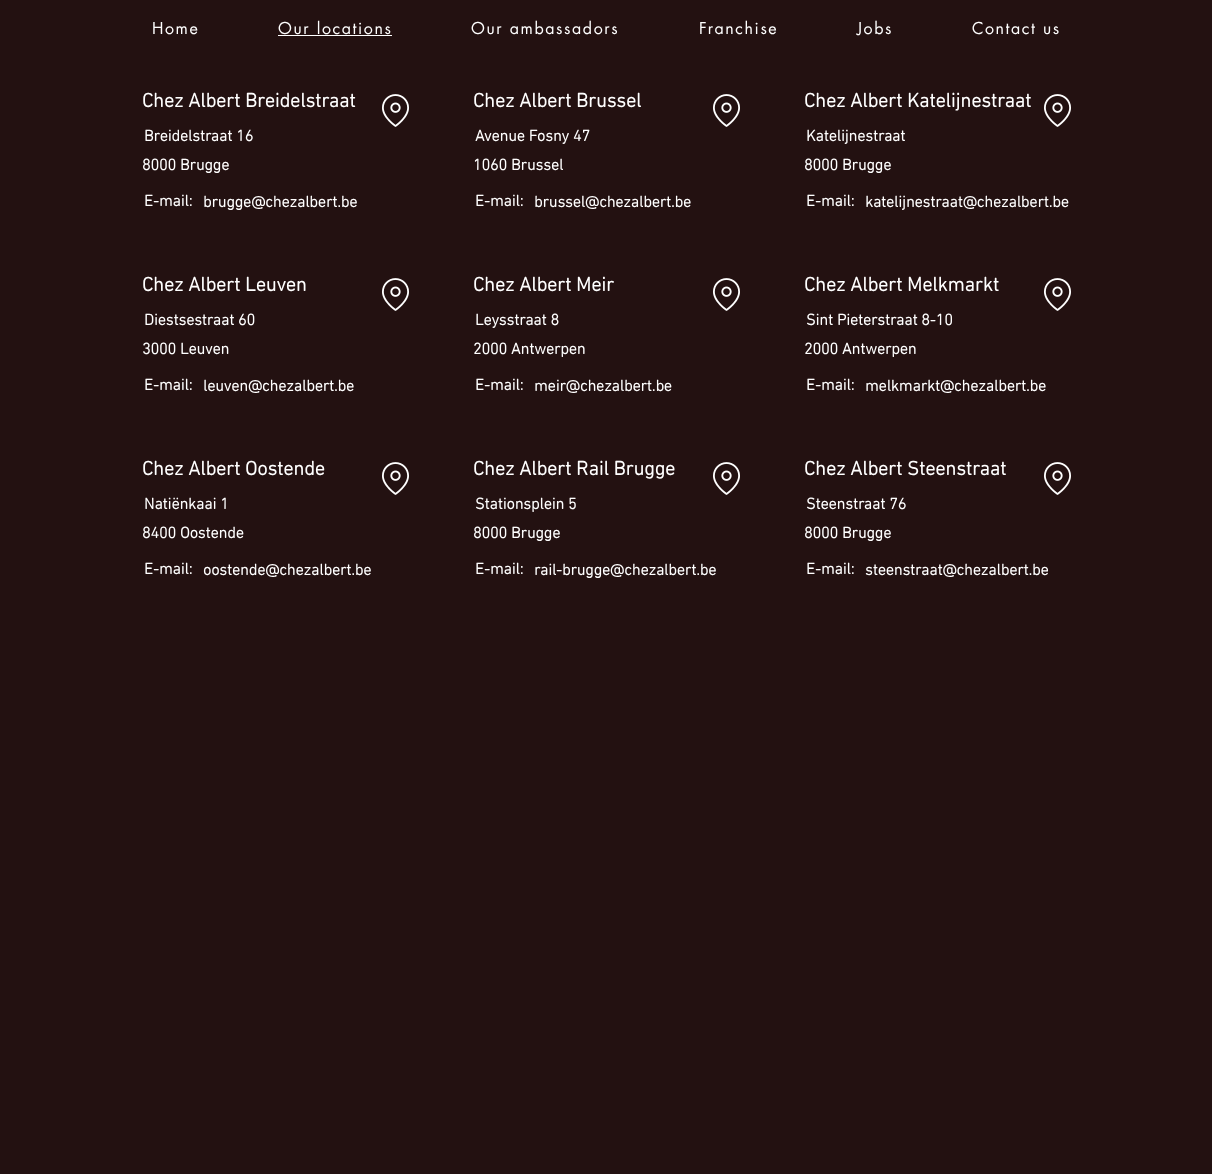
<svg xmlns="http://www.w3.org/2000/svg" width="1212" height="1174">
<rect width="100%" height="100%" fill="#231111"/>
<text x="152" y="34" style="font-family:futura;font-size:16px;letter-spacing:1.6px;fill:#fff">Home</text>
<text x="278" y="34" style="font-family:futura;font-size:16px;letter-spacing:1.6px;fill:#fff">Our locations</text>
<rect x="278" y="35" width="114" height="1" fill="#fff"/>
<text x="471" y="34" style="font-family:futura;font-size:16px;letter-spacing:1.6px;fill:#fff">Our ambassadors</text>
<text x="699" y="34" style="font-family:futura;font-size:16px;letter-spacing:1.6px;fill:#fff">Franchise</text>
<text x="857" y="34" style="font-family:futura;font-size:16px;letter-spacing:1.6px;fill:#fff">Jobs</text>
<text x="972" y="34" style="font-family:futura;font-size:16px;letter-spacing:1.6px;fill:#fff">Contact us</text>
<text x="142" y="107" style="font-family:'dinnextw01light';font-size:20px;font-weight:bold;fill:#fff">Chez Albert Breidelstraat</text>
<image x="382" y="94" width="27" height="33" href="media/1.png"/>
<text x="144" y="141" style="font-family:'dinnextw01light';font-size:16px;font-weight:bold;fill:#fff">Breidelstraat 16</text>
<text x="142" y="170" style="font-family:'dinnextw01light';font-size:16px;font-weight:bold;fill:#fff">8000 Brugge</text>
<text x="144" y="206" style="font-family:'dinnextw01light';font-size:16px;font-weight:bold;fill:#fff">E-mail:</text>
<text x="203" y="207" style="font-family:'dinnextw01light';font-size:16px;font-weight:bold;fill:#fff">brugge@chezalbert.be</text>
<text x="142" y="291" style="font-family:'dinnextw01light';font-size:20px;font-weight:bold;fill:#fff">Chez Albert Leuven</text>
<image x="382" y="278" width="27" height="33" href="media/1.png"/>
<text x="144" y="325" style="font-family:'dinnextw01light';font-size:16px;font-weight:bold;fill:#fff">Diestsestraat 60</text>
<text x="142" y="354" style="font-family:'dinnextw01light';font-size:16px;font-weight:bold;fill:#fff">3000 Leuven</text>
<text x="144" y="390" style="font-family:'dinnextw01light';font-size:16px;font-weight:bold;fill:#fff">E-mail:</text>
<text x="203" y="391" style="font-family:'dinnextw01light';font-size:16px;font-weight:bold;fill:#fff">leuven@chezalbert.be</text>
<text x="142" y="475" style="font-family:'dinnextw01light';font-size:20px;font-weight:bold;fill:#fff">Chez Albert Oostende</text>
<image x="382" y="462" width="27" height="33" href="media/1.png"/>
<text x="144" y="509" style="font-family:'dinnextw01light';font-size:16px;font-weight:bold;fill:#fff">Natiënkaai 1</text>
<text x="142" y="538" style="font-family:'dinnextw01light';font-size:16px;font-weight:bold;fill:#fff">8400 Oostende</text>
<text x="144" y="574" style="font-family:'dinnextw01light';font-size:16px;font-weight:bold;fill:#fff">E-mail:</text>
<text x="203" y="575" style="font-family:'dinnextw01light';font-size:16px;font-weight:bold;fill:#fff">oostende@chezalbert.be</text>
<text x="473" y="107" style="font-family:'dinnextw01light';font-size:20px;font-weight:bold;fill:#fff">Chez Albert Brussel</text>
<image x="713" y="94" width="27" height="33" href="media/1.png"/>
<text x="475" y="141" style="font-family:'dinnextw01light';font-size:16px;font-weight:bold;fill:#fff">Avenue Fosny 47</text>
<text x="473" y="170" style="font-family:'dinnextw01light';font-size:16px;font-weight:bold;fill:#fff">1060 Brussel</text>
<text x="475" y="206" style="font-family:'dinnextw01light';font-size:16px;font-weight:bold;fill:#fff">E-mail:</text>
<text x="534" y="207" style="font-family:'dinnextw01light';font-size:16px;font-weight:bold;fill:#fff">brussel@chezalbert.be</text>
<text x="473" y="291" style="font-family:'dinnextw01light';font-size:20px;font-weight:bold;fill:#fff">Chez Albert Meir</text>
<image x="713" y="278" width="27" height="33" href="media/1.png"/>
<text x="475" y="325" style="font-family:'dinnextw01light';font-size:16px;font-weight:bold;fill:#fff">Leysstraat 8</text>
<text x="473" y="354" style="font-family:'dinnextw01light';font-size:16px;font-weight:bold;fill:#fff">2000 Antwerpen</text>
<text x="475" y="390" style="font-family:'dinnextw01light';font-size:16px;font-weight:bold;fill:#fff">E-mail:</text>
<text x="534" y="391" style="font-family:'dinnextw01light';font-size:16px;font-weight:bold;fill:#fff">meir@chezalbert.be</text>
<text x="473" y="475" style="font-family:'dinnextw01light';font-size:20px;font-weight:bold;fill:#fff">Chez Albert Rail Brugge</text>
<image x="713" y="462" width="27" height="33" href="media/1.png"/>
<text x="475" y="509" style="font-family:'dinnextw01light';font-size:16px;font-weight:bold;fill:#fff">Stationsplein 5</text>
<text x="473" y="538" style="font-family:'dinnextw01light';font-size:16px;font-weight:bold;fill:#fff">8000 Brugge</text>
<text x="475" y="574" style="font-family:'dinnextw01light';font-size:16px;font-weight:bold;fill:#fff">E-mail:</text>
<text x="534" y="575" style="font-family:'dinnextw01light';font-size:16px;font-weight:bold;fill:#fff">rail-brugge@chezalbert.be</text>
<text x="804" y="107" style="font-family:'dinnextw01light';font-size:20px;font-weight:bold;fill:#fff">Chez Albert Katelijnestraat</text>
<image x="1044" y="94" width="27" height="33" href="media/1.png"/>
<text x="806" y="141" style="font-family:'dinnextw01light';font-size:16px;font-weight:bold;fill:#fff">Katelijnestraat</text>
<text x="804" y="170" style="font-family:'dinnextw01light';font-size:16px;font-weight:bold;fill:#fff">8000 Brugge</text>
<text x="806" y="206" style="font-family:'dinnextw01light';font-size:16px;font-weight:bold;fill:#fff">E-mail:</text>
<text x="865" y="207" style="font-family:'dinnextw01light';font-size:16px;font-weight:bold;fill:#fff">katelijnestraat@chezalbert.be</text>
<text x="804" y="291" style="font-family:'dinnextw01light';font-size:20px;font-weight:bold;fill:#fff">Chez Albert Melkmarkt</text>
<image x="1044" y="278" width="27" height="33" href="media/1.png"/>
<text x="806" y="325" style="font-family:'dinnextw01light';font-size:16px;font-weight:bold;fill:#fff">Sint Pieterstraat 8-10</text>
<text x="804" y="354" style="font-family:'dinnextw01light';font-size:16px;font-weight:bold;fill:#fff">2000 Antwerpen</text>
<text x="806" y="390" style="font-family:'dinnextw01light';font-size:16px;font-weight:bold;fill:#fff">E-mail:</text>
<text x="865" y="391" style="font-family:'dinnextw01light';font-size:16px;font-weight:bold;fill:#fff">melkmarkt@chezalbert.be</text>
<text x="804" y="475" style="font-family:'dinnextw01light';font-size:20px;font-weight:bold;fill:#fff">Chez Albert Steenstraat</text>
<image x="1044" y="462" width="27" height="33" href="media/1.png"/>
<text x="806" y="509" style="font-family:'dinnextw01light';font-size:16px;font-weight:bold;fill:#fff">Steenstraat 76</text>
<text x="804" y="538" style="font-family:'dinnextw01light';font-size:16px;font-weight:bold;fill:#fff">8000 Brugge</text>
<text x="806" y="574" style="font-family:'dinnextw01light';font-size:16px;font-weight:bold;fill:#fff">E-mail:</text>
<text x="865" y="575" style="font-family:'dinnextw01light';font-size:16px;font-weight:bold;fill:#fff">steenstraat@chezalbert.be</text>
</svg>
